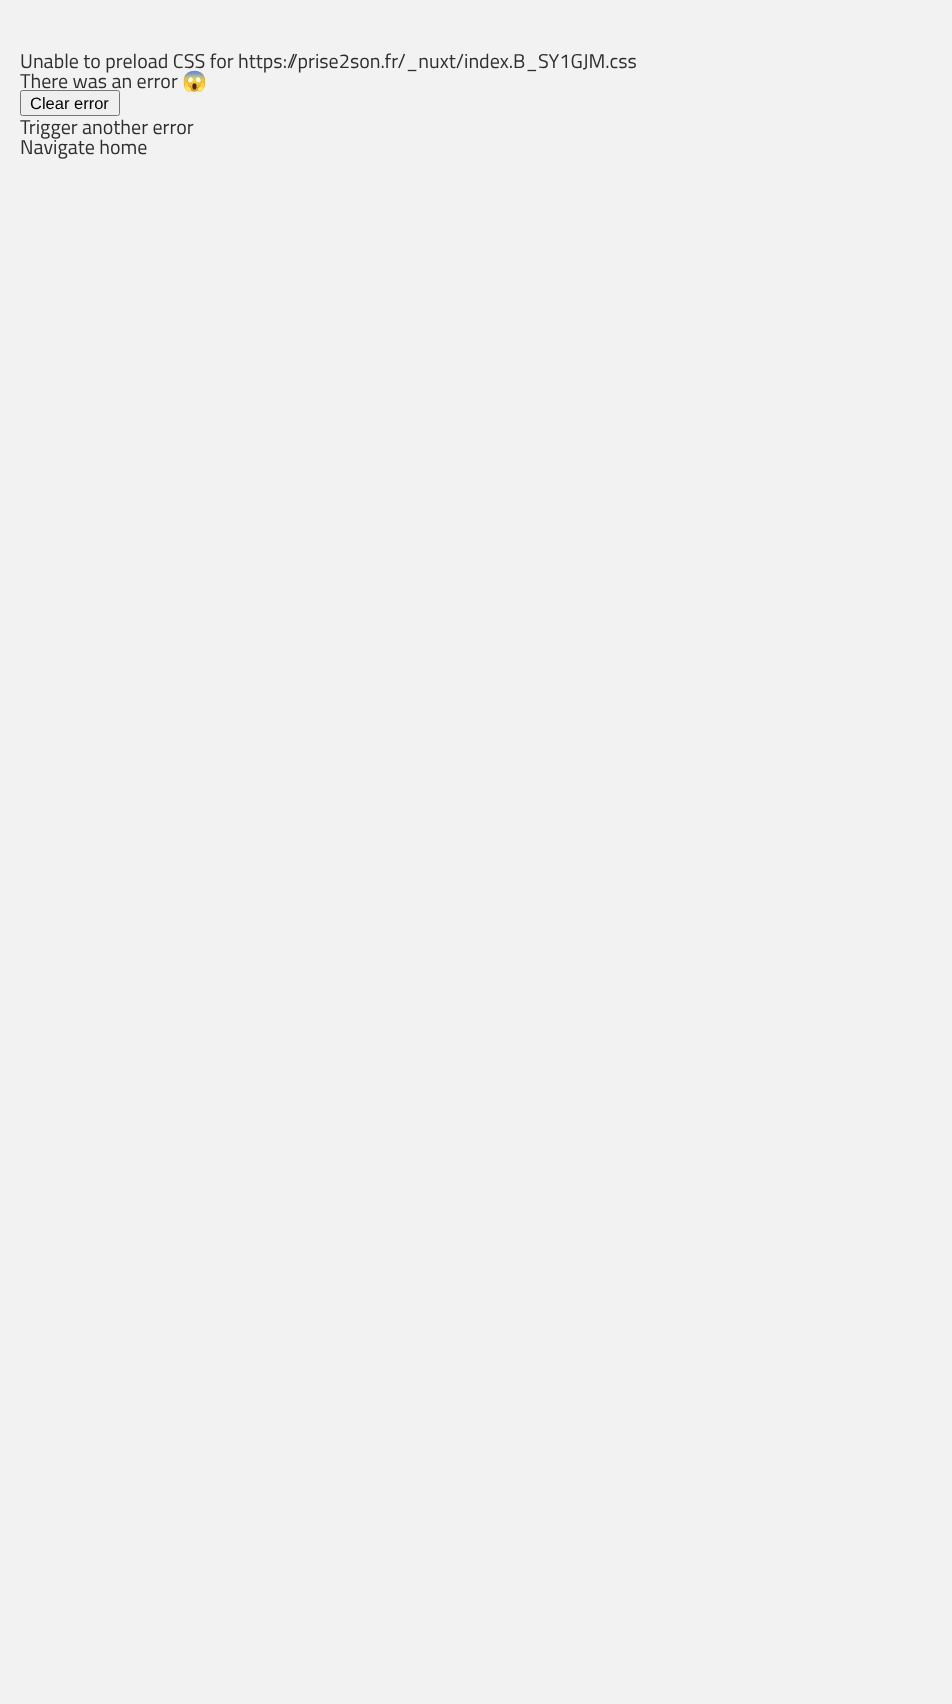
<svg xmlns="http://www.w3.org/2000/svg" width="952" height="1704">
<rect width="100%" height="100%" fill="#f2f2f2"/>
<text x="20" y="68" style="font-family:Titillium Web;font-size:20px;fill:#2e2e2e">Unable to preload CSS for https://prise2son.fr/_nuxt/index.B_SY1GJM.css</text>
<text x="20" y="88" style="font-family:Titillium Web;font-size:20px;fill:#2e2e2e">There was an error</text>
<text x="182" y="88" style="font-family:Noto Color Emoji;font-size:20px;fill:#2e2e2e">😱</text>
<rect x="20.5" y="90.5" width="99" height="25" rx="2" fill="#efefef" stroke="#767676"/>
<text x="30" y="109" style="font-family:Liberation Sans;font-size:16.5px;fill:#000">Clear error</text>
<text x="20" y="134" style="font-family:Titillium Web;font-size:20px;fill:#2e2e2e">Trigger another error</text>
<text x="20" y="154" style="font-family:Titillium Web;font-size:20px;fill:#2e2e2e">Navigate home</text>
</svg>
